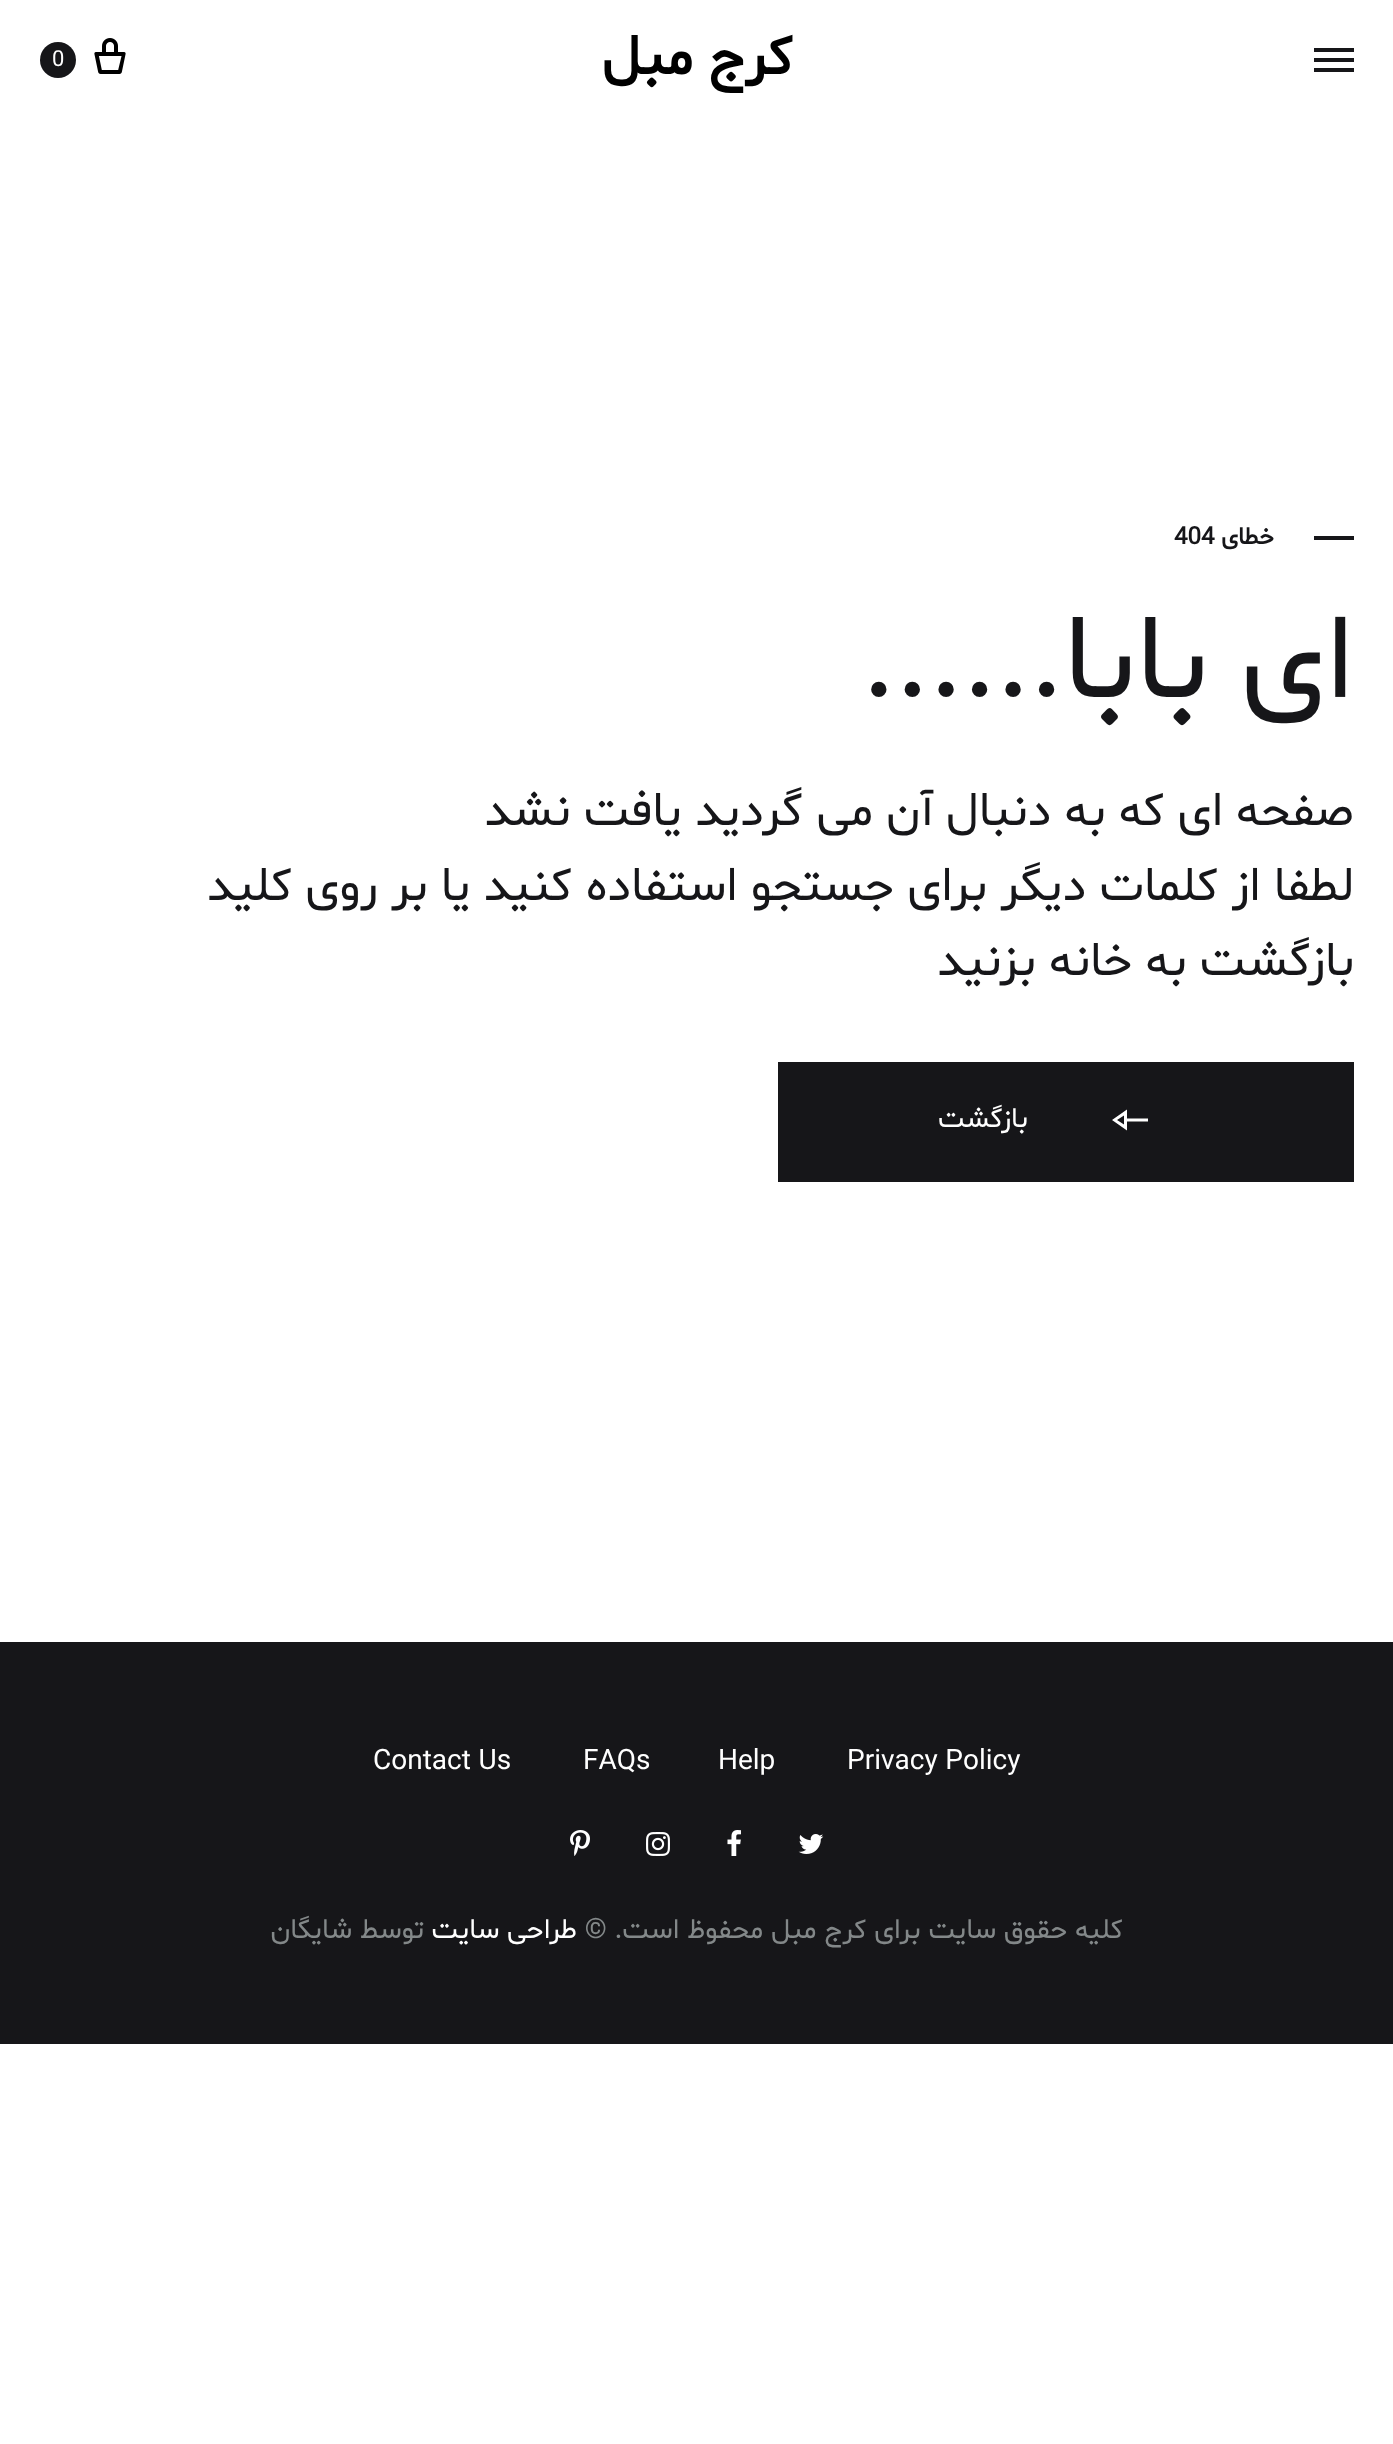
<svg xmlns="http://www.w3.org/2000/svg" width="1393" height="2444">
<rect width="100%" height="100%" fill="#fff"/>
<rect x="1314" y="58" width="40" height="4" fill="#161619"/>
<rect x="1314" y="48" width="40" height="4" fill="#161619"/>
<rect x="1314" y="68" width="40" height="4" fill="#161619"/>
<text x="793" y="74" style="font-family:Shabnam;font-size:56px;font-weight:bold;direction:rtl;fill:#000">کرج مبل</text>
<image x="94" y="38" width="32" height="36" href="media/1.png"/>
<circle cx="58" cy="60" r="18" fill="#161619"/>
<text x="52" y="66" style="font-family:Shabnam;font-size:22px;fill:#fff">0</text>
<rect x="1314" y="536" width="40" height="4" fill="#161619"/>
<text x="1274" y="544" style="font-family:Shabnam;font-size:24px;font-weight:bold;direction:rtl;fill:#161619">خطای</text>
<text x="1174" y="544" style="font-family:Shabnam;font-size:24px;font-weight:bold;fill:#161619">404</text>
<text x="1354" y="697" style="font-family:Shabnam;font-size:120px;direction:rtl;fill:#161619">ای بابا......</text>
<text x="1354" y="825" style="font-family:Shabnam;font-size:48px;direction:rtl;fill:#161619">صفحه ای که به دنبال آن می گردید یافت نشد</text>
<text x="1354" y="900" style="font-family:Shabnam;font-size:48px;direction:rtl;fill:#161619">لطفا از کلمات دیگر برای جستجو استفاده کنید یا بر روی کلید</text>
<text x="1354" y="975" style="font-family:Shabnam;font-size:48px;direction:rtl;fill:#161619">بازگشت به خانه بزنید</text>
<rect x="778" y="1062" width="576" height="120" fill="#161619"/>
<path d="M1127 1121.5h21v-3h-21v-9l-15 10.5l15 10.5zm-10-1.5l7-4.5v9z" fill="#fff"/>
<text x="1028" y="1127" style="font-family:Shabnam;font-size:28px;direction:rtl;fill:#fff">بازگشت</text>
<rect y="1642" width="1393" height="402" fill="#161619"/>
<text x="847" y="1769" style="font-family:Shabnam;font-size:28px;fill:#fff">Privacy Policy</text>
<text x="718" y="1769" style="font-family:Shabnam;font-size:28px;fill:#fff">Help</text>
<text x="583" y="1769" style="font-family:Shabnam;font-size:28px;fill:#fff">FAQs</text>
<text x="373" y="1769" style="font-family:Shabnam;font-size:28px;fill:#fff">Contact Us</text>
<image x="798" y="1834" width="26" height="20" href="media/2.png"/>
<image x="727" y="1830" width="14" height="26" href="media/3.png"/>
<image x="646" y="1832" width="24" height="24" href="media/4.png"/>
<image x="570" y="1830" width="20" height="26" href="media/5.png"/>
<text x="1123" y="1938" style="font-family:Shabnam;font-size:28px;direction:rtl;fill:#838889">کلیه حقوق سایت برای کرج مبل محفوظ است. ©</text>
<text x="577" y="1938" style="font-family:Shabnam;font-size:28px;direction:rtl;fill:#fff">طراحی سایت</text>
<text x="424" y="1938" style="font-family:Shabnam;font-size:28px;direction:rtl;fill:#838889">توسط شایگان</text>
</svg>
